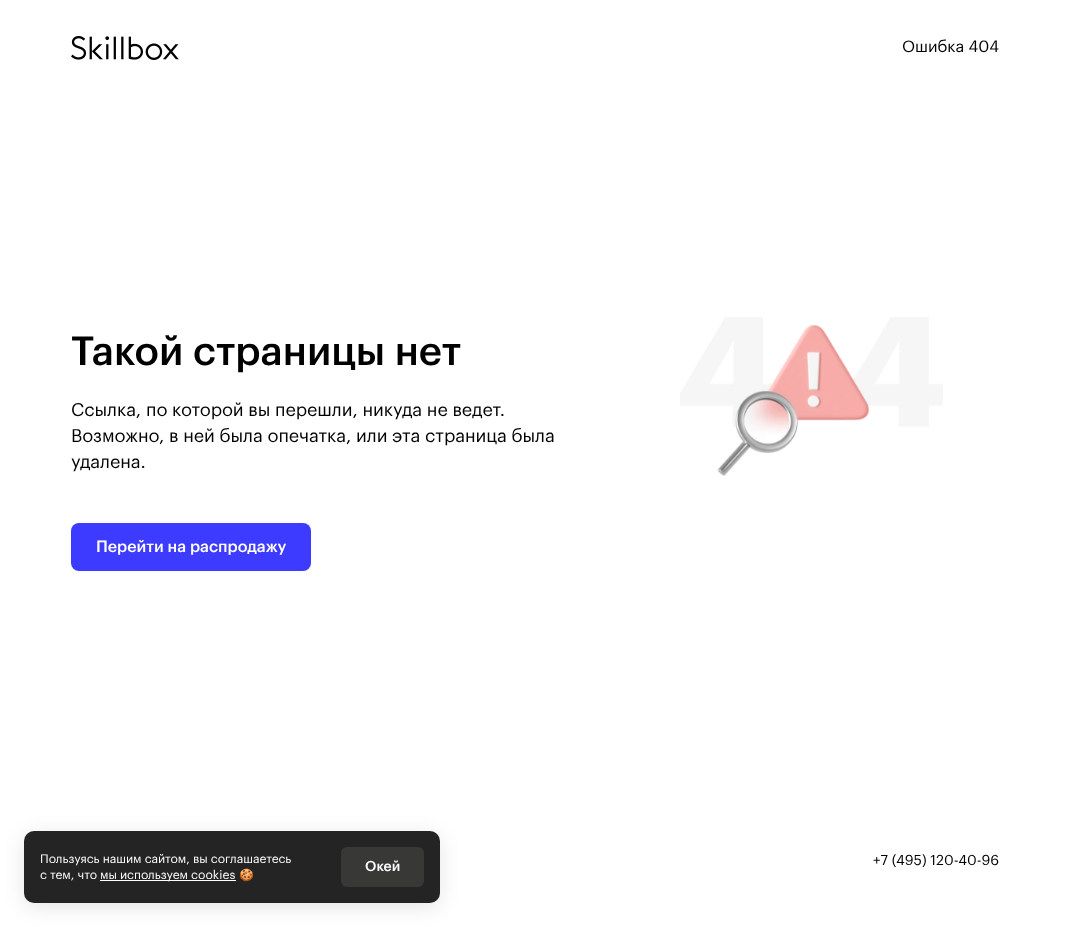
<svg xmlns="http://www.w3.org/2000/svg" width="1070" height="927">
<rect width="100%" height="100%" fill="#fff"/>
<image x="71" y="36" width="108" height="24" href="media/1.png"/>
<text x="902" y="52" style="font-family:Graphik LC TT;font-size:16px;fill:#000">Ошибка 404</text>
<text x="71" y="365" style="font-family:Graphik LC TT;font-size:40px;font-weight:500;fill:#000">Такой страницы нет</text>
<image x="680" y="317" width="263" height="159" href="media/2.png"/>
<text x="71" y="416" style="font-family:Graphik LC TT;font-size:18px;fill:#000">Ссылка, по которой вы перешли, никуда не ведет.</text>
<text x="71" y="442" style="font-family:Graphik LC TT;font-size:18px;fill:#000">Возможно, в ней была опечатка, или эта страница была</text>
<text x="71" y="468" style="font-family:Graphik LC TT;font-size:18px;fill:#000">удалена.</text>
<rect x="71" y="523" width="240" height="48" rx="8" fill="#3d3bff"/>
<text x="96" y="552" style="font-family:Graphik LC TT;font-size:16px;font-weight:500;fill:#fff">Перейти на распродажу</text>
<text x="873" y="865" style="font-family:Graphik LC TT;font-size:14px;fill:#000">+7 (495) 120-40-96</text>
<rect x="24" y="835" width="416" height="72" rx="10" fill="#0000001a" filter="blur(10px)"/>
<rect x="24" y="831" width="416" height="72" rx="10" fill="#242424"/>
<text x="40" y="863" style="font-family:Graphik LC TT;font-size:12px;fill:#fff">Пользуясь нашим сайтом, вы соглашаетесь</text>
<text x="40" y="879" style="font-family:Graphik LC TT;font-size:12px;fill:#fff">с тем, что</text>
<rect x="100" y="880" width="136" height="1" fill="#fff"/>
<text x="100" y="879" style="font-family:Graphik LC TT;font-size:12px;fill:#fff">мы используем cookies</text>
<text x="239" y="879" style="font-family:Noto Color Emoji;font-size:12px;fill:#fff">🍪</text>
<rect x="341" y="847" width="83" height="40" rx="6" fill="#383837"/>
<text x="365" y="871" style="font-family:Graphik LC TT;font-size:14px;font-weight:500;fill:#fff">Окей</text>
</svg>
